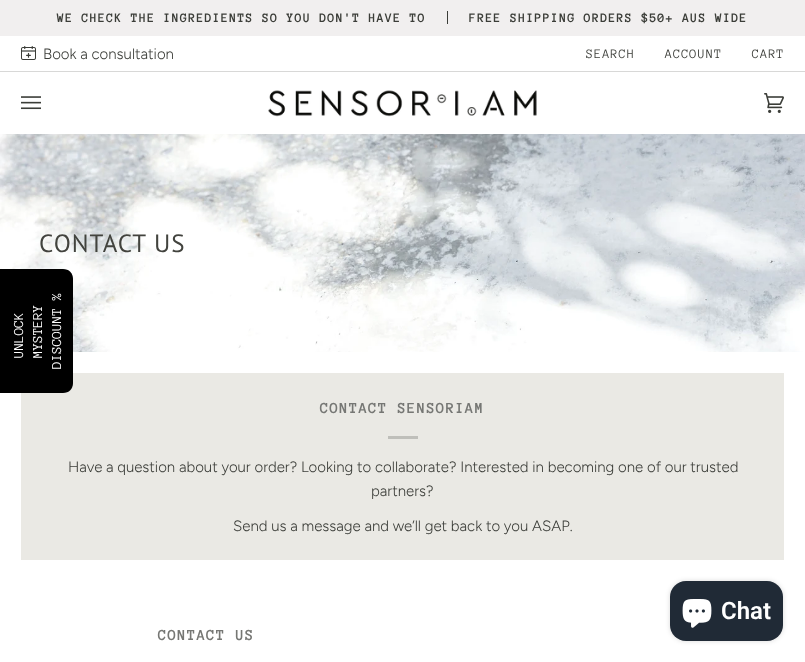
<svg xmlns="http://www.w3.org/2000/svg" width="805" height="662">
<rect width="100%" height="100%" fill="#fff"/>
<rect width="805" height="36" fill="#f1efef"/>
<text x="57" y="22" style="font-family:Anonymous Pro;font-size:13.2px;font-weight:bold;letter-spacing:1px;fill:#3b3d38">WE CHECK THE INGREDIENTS SO YOU DON'T HAVE TO</text>
<text x="469" y="22" style="font-family:Anonymous Pro;font-size:13.2px;font-weight:bold;letter-spacing:1px;fill:#3b3d38">FREE SHIPPING ORDERS $50+ AUS WIDE</text>
<rect x="447" y="11" width="1" height="13" fill="#3b3d38"/>
<rect y="71" width="805" height="1" fill="#d8d8d7"/>
<image x="21" y="46" width="15" height="14" href="media/1.png"/>
<text x="43" y="59" style="font-family:Figtree;font-size:15px;font-weight:300;fill:#3b3d38">Book a consultation</text>
<text x="586" y="58" style="font-family:Anonymous Pro;font-size:13.2px;letter-spacing:1px;fill:#3b3d38">SEARCH</text>
<text x="665" y="58" style="font-family:Anonymous Pro;font-size:13.2px;letter-spacing:1px;fill:#3b3d38">ACCOUNT</text>
<text x="752" y="58" style="font-family:Anonymous Pro;font-size:13.2px;letter-spacing:1px;fill:#3b3d38">CART</text>
<image x="21" y="96" width="20" height="14" href="media/2.png"/>
<image x="268" y="90" width="269" height="27" href="media/3.png"/>
<image x="764" y="93" width="20" height="20" href="media/4.png"/>
<image x="0" y="134" width="805" height="218" href="media/5.png"/>
<rect x="21" y="373" width="763" height="187" fill="#eae9e4"/>
<path d="M0 393v-124h63c6 0 10 4 10 10v104c0 6-4 10-10 10z" fill="#000"/>
<text x="23" y="358" transform="rotate(-90 23 358)" style="font-family:Anonymous Pro;font-size:14px;fill:#fff">UNLOCK</text>
<text x="42" y="358" transform="rotate(-90 42 358)" style="font-family:Anonymous Pro;font-size:14px;fill:#fff">MYSTERY</text>
<text x="61" y="369" transform="rotate(-90 61 369)" style="font-family:Anonymous Pro;font-size:14px;fill:#fff">DISCOUNT %</text>
<text x="39" y="252" style="font-family:PT Sans;font-size:25px;letter-spacing:1px;fill:#42433e">CONTACT US</text>
<text x="320" y="413" style="font-family:Anonymous Pro;font-size:15.9px;font-weight:bold;letter-spacing:1px;fill:#767774">CONTACT SENSORIAM</text>
<rect x="388" y="436" width="30" height="3" fill="#bfbfba"/>
<text x="68" y="472" style="font-family:Figtree;font-size:15px;font-weight:300;fill:#3b3d38">Have a question about your order? Looking to collaborate? Interested in becoming one of our trusted</text>
<text x="371" y="496" style="font-family:Figtree;font-size:15px;font-weight:300;fill:#3b3d38">partners?</text>
<text x="233" y="531" style="font-family:Figtree;font-size:15px;font-weight:300;fill:#3b3d38">Send us a message and we’ll get back to you ASAP.</text>
<text x="158" y="640" style="font-family:Anonymous Pro;font-size:15.9px;font-weight:bold;letter-spacing:1px;fill:#767774">CONTACT US</text>
<rect x="670" y="581" width="113" height="60" rx="16" fill="#00000026" filter="blur(2.5px)"/>
<rect x="670" y="581" width="113" height="60" rx="16" fill="#202a36"/>
<image x="682" y="599" width="30" height="29" href="media/6.png"/>
<text x="721" y="619" style="font-family:Roboto;font-size:24px;font-weight:600;fill:#fff">Chat</text>
</svg>
